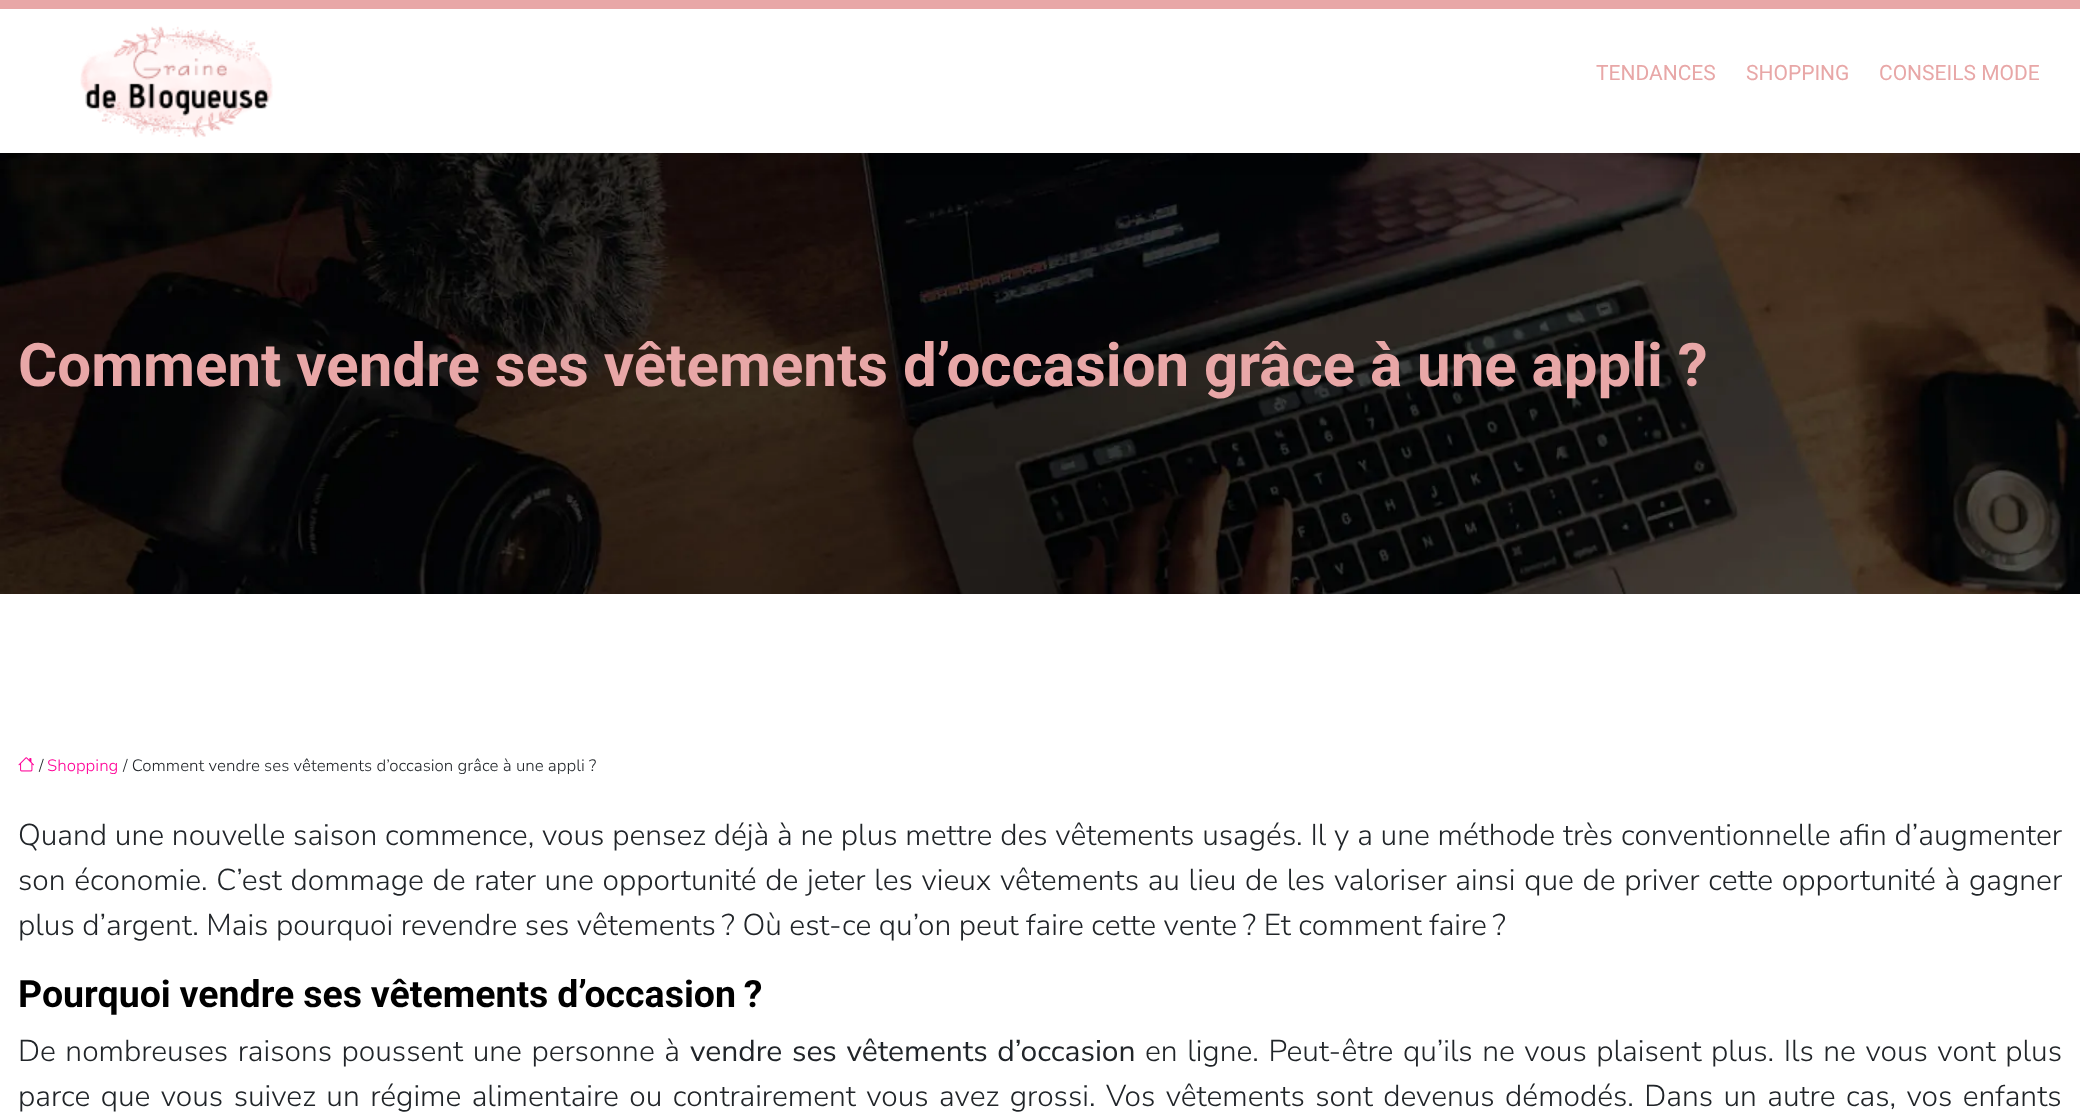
<svg xmlns="http://www.w3.org/2000/svg" width="2080" height="1119">
<rect width="100%" height="100%" fill="#fff"/>
<image x="0" y="153" width="2080" height="441" href="media/2.png"/>
<rect y="3" width="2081" height="153" fill="#0000001a" filter="blur(10px)"/>
<rect y="9" width="2080" height="144" fill="#fff"/>
<rect width="2080" height="9" fill="#e8a7a7"/>
<image x="80" y="26" width="193" height="112" href="media/1.png"/>
<text x="1596" y="80" style="font-family:Roboto;font-size:21px;fill:#e8a7a7">TENDANCES</text>
<text x="1746" y="80" style="font-family:Roboto;font-size:21px;fill:#e8a7a7">SHOPPING</text>
<text x="1879" y="80" style="font-family:Roboto;font-size:21px;fill:#e8a7a7">CONSEILS MODE</text>
<text x="18" y="386" style="font-family:Roboto;font-size:60px;font-weight:bold;fill:#e8a7a7">Comment vendre ses vêtements d’occasion grâce à une appli ?</text>
<image x="18" y="757" width="16" height="15" href="media/3.png"/>
<text x="39" y="771" style="font-family:Nunito Sans;font-size:16.5px;font-weight:300;fill:#212529">/</text>
<text x="47" y="771" style="font-family:Nunito Sans;font-size:16.5px;font-weight:300;fill:#ff0097">Shopping</text>
<text x="123" y="771" style="font-family:Nunito Sans;font-size:16.5px;font-weight:300;fill:#212529">/ Comment vendre ses vêtements d’occasion grâce à une appli ?</text>
<text x="18" y="845" word-spacing="0.25" style="font-family:'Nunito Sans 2';font-size:30px;font-weight:300;fill:#212529">Quand une nouvelle saison commence, vous pensez déjà à ne plus mettre des vêtements usagés. Il y a une méthode très conventionnelle afin d’augmenter</text>
<text x="18" y="890" word-spacing="1.15" style="font-family:'Nunito Sans 2';font-size:30px;font-weight:300;fill:#212529">son économie. C’est dommage de rater une opportunité de jeter les vieux vêtements au lieu de les valoriser ainsi que de priver cette opportunité à gagner</text>
<text x="18" y="935" style="font-family:'Nunito Sans 2';font-size:30px;font-weight:300;fill:#212529">plus d’argent. Mais pourquoi revendre ses vêtements ? Où est-ce qu’on peut faire cette vente ? Et comment faire ?</text>
<text x="18" y="1007" word-spacing="-0.5" style="font-family:Roboto;font-size:37.5px;font-weight:bold;fill:#000">Pourquoi vendre ses vêtements d’occasion ?</text>
<text x="18" y="1061" word-spacing="2" style="font-family:'Nunito Sans 2';font-size:30px;font-weight:300;fill:#212529">De nombreuses raisons poussent une personne à</text>
<text x="690" y="1061" word-spacing="2" style="font-family:Nunito Sans;font-size:30px;fill:#212529">vendre ses vêtements d’occasion</text>
<text x="1145" y="1061" word-spacing="2" style="font-family:'Nunito Sans 2';font-size:30px;font-weight:300;fill:#212529">en ligne. Peut-être qu’ils ne vous plaisent plus. Ils ne vous vont plus</text>
<text x="18" y="1106" word-spacing="2.9" style="font-family:'Nunito Sans 2';font-size:30px;font-weight:300;fill:#212529">parce que vous suivez un régime alimentaire ou contrairement vous avez grossi. Vos vêtements sont devenus démodés. Dans un autre cas, vos enfants</text>
</svg>
